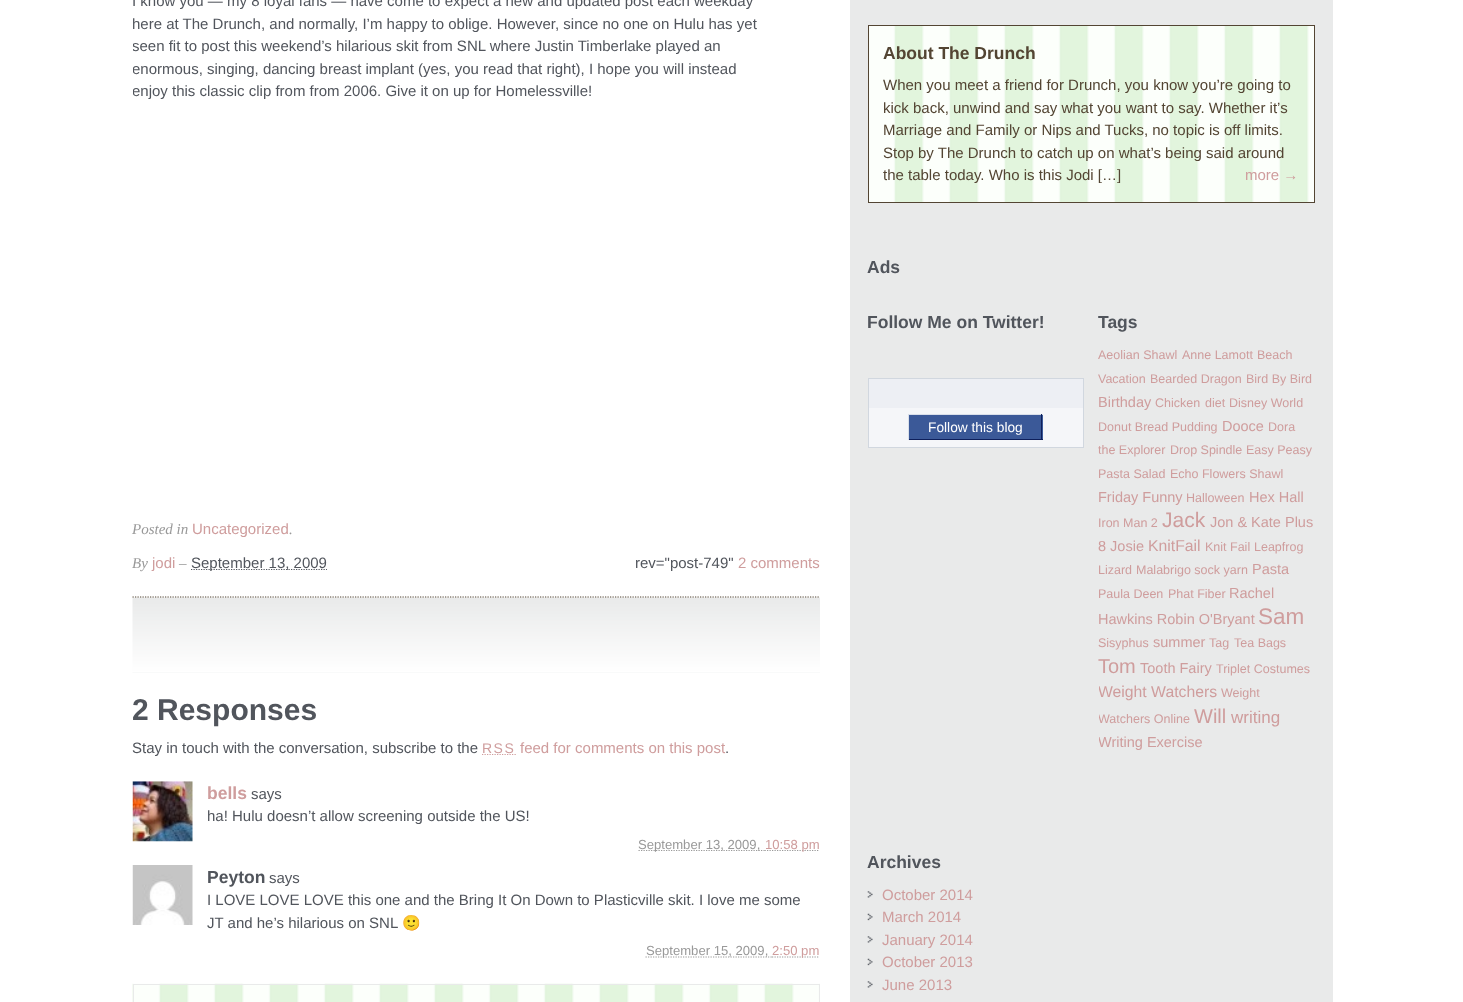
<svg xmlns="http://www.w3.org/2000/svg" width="1463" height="1002">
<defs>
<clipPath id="clip1"><rect x="133" width="637" height="518"/></clipPath>
<clipPath id="clip2"><rect x="208" y="805" width="612" height="23"/></clipPath>
<clipPath id="clip3"><rect x="1099" y="310" width="216" height="443"/></clipPath>
</defs>
<rect width="100%" height="100%" fill="#fff"/>
<text x="132" y="6" style="font-family:Liberation Sans;font-size:15px;fill:#51555c">I know you — my 8 loyal fans — have come to expect a new and updated post each weekday</text>
<g clip-path="url(#clip1)">
<text x="132" y="29" style="font-family:Liberation Sans;font-size:15px;fill:#51555c">here at The Drunch, and normally, I’m happy to oblige. However, since no one on Hulu has yet</text>
<text x="132" y="51" style="font-family:Liberation Sans;font-size:15px;fill:#51555c">seen fit to post this weekend’s hilarious skit from SNL where Justin Timberlake played an</text>
<text x="132" y="74" style="font-family:Liberation Sans;font-size:15px;fill:#51555c">enormous, singing, dancing breast implant (yes, you read that right), I hope you will instead</text>
<text x="132" y="96" style="font-family:Liberation Sans;font-size:15px;fill:#51555c">enjoy this classic clip from from 2006. Give it on up for Homelessville!</text>
</g>
<text x="132" y="534" style="font-family:Liberation Serif;font-size:15px;font-style:italic;fill:#999">Posted in</text>
<text x="192" y="534" style="font-family:Liberation Sans;font-size:15px;fill:#cf9d9d">Uncategorized</text>
<text x="289" y="534" style="font-family:Liberation Serif;font-size:15px;font-style:italic;fill:#999">.</text>
<text x="132" y="568" style="font-family:Liberation Serif;font-size:15px;font-style:italic;fill:#999">By</text>
<text x="152" y="568" style="font-family:Liberation Sans;font-size:15px;fill:#cf9d9d">jodi</text>
<text x="179" y="568" style="font-family:Liberation Serif;font-size:15px;font-style:italic;fill:#999">–</text>
<path d="M191 569.5h136" fill="none" stroke="#51555c" stroke-width="1.2" stroke-dasharray="1.25 1.25"/>
<text x="191" y="568" style="font-family:Liberation Sans;font-size:15px;fill:#51555c">September 13, 2009</text>
<text x="635" y="568" style="font-family:Liberation Sans;font-size:15px;fill:#51555c">rev="post-749"</text>
<text x="738" y="568" style="font-family:Liberation Sans;font-size:15px;fill:#cf9d9d">2 comments</text>
<image x="132" y="597" width="688" height="76" href="media/1.png"/>
<path d="M132.5 597h687.5" fill="none" stroke="#534533" stroke-width="1.2" stroke-dasharray="1.25 1.25"/>
<text x="132" y="720" style="font-family:Liberation Sans;font-size:30px;font-weight:bold;fill:#51555c">2 Responses</text>
<text x="132" y="753" style="font-family:Liberation Sans;font-size:15px;fill:#51555c">Stay in touch with the conversation, subscribe to the</text>
<path d="M482 754.5h34" fill="none" stroke="#cf9d9d" stroke-width="1.2" stroke-dasharray="1.25 1.25"/>
<text x="482" y="753" style="font-family:Liberation Sans;font-size:14px;letter-spacing:1.5px;fill:#cf9d9d">RSS</text>
<text x="520" y="753" style="font-family:Liberation Sans;font-size:15px;fill:#cf9d9d">feed for comments on this post</text>
<text x="725" y="753" style="font-family:Liberation Sans;font-size:15px;fill:#51555c">.</text>
<image x="132" y="781" width="61" height="61" href="media/2.png"/>
<text x="207" y="799" style="font-family:Liberation Sans;font-size:17.5px;font-weight:bold;fill:#cf9d9d">bells</text>
<text x="251" y="799" style="font-family:Liberation Sans;font-size:15px;fill:#51555c">says</text>
<g clip-path="url(#clip2)">
<text x="207" y="821" style="font-family:Liberation Sans;font-size:15px;fill:#51555c">ha! Hulu doesn’t allow screening outside the US!</text>
</g>
<path d="M638.5 850.5h126" fill="none" stroke="#999" stroke-width="1.2" stroke-dasharray="1.25 1.25"/>
<text x="638" y="849" style="font-family:Liberation Sans;font-size:13.1px;fill:#999">September 13, 2009,</text>
<path d="M764.5 850.5h55" fill="none" stroke="#999" stroke-width="1.2" stroke-dasharray="1.25 1.25"/>
<text x="765" y="849" style="font-family:Liberation Sans;font-size:13.1px;fill:#cf9d9d">10:58 pm</text>
<image x="132" y="865" width="61" height="60" href="media/3.png"/>
<text x="207" y="883" style="font-family:Liberation Sans;font-size:17.5px;font-weight:bold;fill:#51555c">Peyton</text>
<text x="269" y="883" style="font-family:Liberation Sans;font-size:15px;fill:#51555c">says</text>
<text x="207" y="905" style="font-family:Liberation Sans;font-size:15px;fill:#51555c">I LOVE LOVE LOVE this one and the Bring It On Down to Plasticville skit. I love me some</text>
<text x="207" y="928" style="font-family:Liberation Sans;font-size:15px;fill:#51555c">JT and he’s hilarious on SNL</text>
<text x="402" y="928" style="font-family:Noto Color Emoji;font-size:15px;fill:#51555c">🙂</text>
<path d="M645.5 957h126.5" fill="none" stroke="#999" stroke-width="1.2" stroke-dasharray="1.25 1.25"/>
<text x="646" y="955" style="font-family:Liberation Sans;font-size:13.1px;fill:#999">September 15, 2009,</text>
<path d="M772 957h47.5" fill="none" stroke="#999" stroke-width="1.2" stroke-dasharray="1.25 1.25"/>
<text x="772" y="955" style="font-family:Liberation Sans;font-size:13.1px;fill:#cf9d9d">2:50 pm</text>
<image x="132" y="983" width="688" height="19" href="media/4.png"/>
<rect x="133.5" y="984.5" width="686" height="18" fill="none" stroke="#e9eaea"/>
<rect x="850" width="483" height="1002" fill="#e9eaea"/>
<image x="869" y="26" width="445" height="176" href="media/5.png"/>
<rect x="868.5" y="25.5" width="446" height="177" fill="none" stroke="#534533"/>
<text x="883" y="59" style="font-family:Liberation Sans;font-size:17.5px;font-weight:bold;fill:#534533">About The Drunch</text>
<text x="883" y="90" style="font-family:Liberation Sans;font-size:15px;fill:#534533">When you meet a friend for Drunch, you know you’re going to</text>
<text x="883" y="113" style="font-family:Liberation Sans;font-size:15px;fill:#534533">kick back, unwind and say what you want to say. Whether it’s</text>
<text x="883" y="135" style="font-family:Liberation Sans;font-size:15px;fill:#534533">Marriage and Family or Nips and Tucks, no topic is off limits.</text>
<text x="883" y="158" style="font-family:Liberation Sans;font-size:15px;fill:#534533">Stop by The Drunch to catch up on what’s being said around</text>
<text x="883" y="180" style="font-family:Liberation Sans;font-size:15px;fill:#534533">the table today. Who is this Jodi […]</text>
<text x="1245" y="180" style="font-family:Liberation Sans;font-size:15px;fill:#cf9d9d">more →</text>
<text x="867" y="273" style="font-family:Liberation Sans;font-size:17.5px;font-weight:bold;fill:#51555c">Ads</text>
<text x="867" y="328" style="font-family:Liberation Sans;font-size:17.5px;font-weight:bold;fill:#51555c">Follow Me on Twitter!</text>
<rect x="869" y="408" width="214" height="39" fill="#f5f6f9"/>
<rect x="868.5" y="378.5" width="215" height="69" fill="none" stroke="#d1d7df"/>
<rect x="869" y="379" width="214" height="29" fill="#edeff4"/>
<rect x="909" y="415" width="134" height="24" fill="#3b5998"/>
<rect x="908" y="414" width="135" height="1" fill="#d9dfea"/>
<rect x="1041" y="414" width="1" height="26" fill="#0e1f5b"/>
<rect x="908" y="439" width="135" height="1" fill="#0e1f5b"/>
<rect x="908" y="414" width="1" height="26" fill="#d9dfea"/>
<text x="928" y="432" style="font-family:Liberation Sans;font-size:13.75px;fill:#fff">Follow this blog</text>
<text x="867" y="868" style="font-family:Liberation Sans;font-size:17.5px;font-weight:bold;fill:#51555c">Archives</text>
<image x="867" y="891" width="6" height="7" href="media/6.png"/>
<text x="882" y="900" style="font-family:Liberation Sans;font-size:15px;fill:#cf9d9d">October 2014</text>
<image x="867" y="913" width="6" height="8" href="media/7.png"/>
<text x="882" y="922" style="font-family:Liberation Sans;font-size:15px;fill:#cf9d9d">March 2014</text>
<image x="867" y="936" width="6" height="7" href="media/6.png"/>
<text x="882" y="945" style="font-family:Liberation Sans;font-size:15px;fill:#cf9d9d">January 2014</text>
<image x="867" y="958" width="6" height="8" href="media/7.png"/>
<text x="882" y="967" style="font-family:Liberation Sans;font-size:15px;fill:#cf9d9d">October 2013</text>
<image x="867" y="981" width="6" height="7" href="media/6.png"/>
<text x="882" y="990" style="font-family:Liberation Sans;font-size:15px;fill:#cf9d9d">June 2013</text>
<text x="1098" y="328" style="font-family:Liberation Sans;font-size:17.5px;font-weight:bold;fill:#51555c">Tags</text>
<text x="1098" y="359" style="font-family:Liberation Sans;font-size:12.5px;fill:#cf9d9d">Aeolian Shawl</text>
<text x="1182" y="359" style="font-family:Liberation Sans;font-size:12.5px;fill:#cf9d9d">Anne Lamott</text>
<text x="1257" y="359" style="font-family:Liberation Sans;font-size:12.5px;fill:#cf9d9d">Beach</text>
<text x="1098" y="383" style="font-family:Liberation Sans;font-size:12.5px;fill:#cf9d9d">Vacation</text>
<text x="1150" y="383" style="font-family:Liberation Sans;font-size:12.5px;fill:#cf9d9d">Bearded Dragon</text>
<text x="1246" y="383" style="font-family:Liberation Sans;font-size:12.5px;fill:#cf9d9d">Bird By Bird</text>
<text x="1098" y="407" style="font-family:Liberation Sans;font-size:14.5px;fill:#cf9d9d">Birthday</text>
<text x="1155" y="407" style="font-family:Liberation Sans;font-size:12.5px;fill:#cf9d9d">Chicken</text>
<text x="1205" y="407" style="font-family:Liberation Sans;font-size:12.5px;fill:#cf9d9d">diet</text>
<text x="1229" y="407" style="font-family:Liberation Sans;font-size:12.5px;fill:#cf9d9d">Disney World</text>
<text x="1098" y="431" style="font-family:Liberation Sans;font-size:12.5px;fill:#cf9d9d">Donut Bread Pudding</text>
<text x="1222" y="431" style="font-family:Liberation Sans;font-size:14.5px;fill:#cf9d9d">Dooce</text>
<text x="1268" y="431" style="font-family:Liberation Sans;font-size:12.5px;fill:#cf9d9d">Dora</text>
<text x="1098" y="454" style="font-family:Liberation Sans;font-size:12.5px;fill:#cf9d9d">the Explorer</text>
<text x="1170" y="454" style="font-family:Liberation Sans;font-size:12.5px;fill:#cf9d9d">Drop Spindle</text>
<text x="1246" y="454" style="font-family:Liberation Sans;font-size:12.5px;fill:#cf9d9d">Easy Peasy</text>
<text x="1098" y="478" style="font-family:Liberation Sans;font-size:12.5px;fill:#cf9d9d">Pasta Salad</text>
<text x="1170" y="478" style="font-family:Liberation Sans;font-size:12.5px;fill:#cf9d9d">Echo Flowers Shawl</text>
<text x="1098" y="502" style="font-family:Liberation Sans;font-size:14.5px;fill:#cf9d9d">Friday Funny</text>
<text x="1186" y="502" style="font-family:Liberation Sans;font-size:12.5px;fill:#cf9d9d">Halloween</text>
<text x="1249" y="502" style="font-family:Liberation Sans;font-size:14.5px;fill:#cf9d9d">Hex Hall</text>
<text x="1098" y="527" style="font-family:Liberation Sans;font-size:12.5px;fill:#cf9d9d">Iron Man 2</text>
<text x="1162" y="527" style="font-family:Liberation Sans;font-size:21px;fill:#cf9d9d">Jack</text>
<text x="1210" y="527" style="font-family:Liberation Sans;font-size:14.5px;fill:#cf9d9d">Jon &amp; Kate Plus</text>
<text x="1098" y="551" style="font-family:Liberation Sans;font-size:14.5px;fill:#cf9d9d">8 Josie</text>
<text x="1148" y="551" style="font-family:Liberation Sans;font-size:15.75px;fill:#cf9d9d">KnitFail</text>
<text x="1205" y="551" style="font-family:Liberation Sans;font-size:12.5px;fill:#cf9d9d">Knit Fail</text>
<text x="1254" y="551" style="font-family:Liberation Sans;font-size:12.5px;fill:#cf9d9d">Leapfrog</text>
<text x="1098" y="574" style="font-family:Liberation Sans;font-size:12.5px;fill:#cf9d9d">Lizard</text>
<text x="1136" y="574" style="font-family:Liberation Sans;font-size:12.5px;fill:#cf9d9d">Malabrigo sock yarn</text>
<text x="1252" y="574" style="font-family:Liberation Sans;font-size:14.5px;fill:#cf9d9d">Pasta</text>
<text x="1098" y="598" style="font-family:Liberation Sans;font-size:12.5px;fill:#cf9d9d">Paula Deen</text>
<text x="1168" y="598" style="font-family:Liberation Sans;font-size:12.5px;fill:#cf9d9d">Phat Fiber</text>
<text x="1229" y="598" style="font-family:Liberation Sans;font-size:14.5px;fill:#cf9d9d">Rachel</text>
<text x="1098" y="624" style="font-family:Liberation Sans;font-size:14.5px;fill:#cf9d9d">Hawkins Robin O'Bryant</text>
<text x="1258" y="624" style="font-family:Liberation Sans;font-size:22.5px;fill:#cf9d9d">Sam</text>
<text x="1098" y="647" style="font-family:Liberation Sans;font-size:12.5px;fill:#cf9d9d">Sisyphus</text>
<text x="1153" y="647" style="font-family:Liberation Sans;font-size:14.5px;fill:#cf9d9d">summer</text>
<text x="1209" y="647" style="font-family:Liberation Sans;font-size:12.5px;fill:#cf9d9d">Tag</text>
<text x="1234" y="647" style="font-family:Liberation Sans;font-size:12.5px;fill:#cf9d9d">Tea Bags</text>
<text x="1098" y="673" style="font-family:Liberation Sans;font-size:20px;fill:#cf9d9d">Tom</text>
<text x="1140" y="673" style="font-family:Liberation Sans;font-size:14.5px;fill:#cf9d9d">Tooth Fairy</text>
<text x="1216" y="673" style="font-family:Liberation Sans;font-size:12.5px;fill:#cf9d9d">Triplet Costumes</text>
<g clip-path="url(#clip3)">
<text x="1098" y="697" style="font-family:Liberation Sans;font-size:15.75px;fill:#cf9d9d">Weight Watchers</text>
</g>
<text x="1221" y="697" style="font-family:Liberation Sans;font-size:12.5px;fill:#cf9d9d">Weight</text>
<g clip-path="url(#clip3)">
<text x="1098" y="723" style="font-family:Liberation Sans;font-size:12.5px;fill:#cf9d9d">Watchers Online</text>
</g>
<text x="1194" y="723" style="font-family:Liberation Sans;font-size:20px;fill:#cf9d9d">Will</text>
<text x="1231" y="723" style="font-family:Liberation Sans;font-size:17px;fill:#cf9d9d">writing</text>
<g clip-path="url(#clip3)">
<text x="1098" y="747" style="font-family:Liberation Sans;font-size:14.5px;fill:#cf9d9d">Writing Exercise</text>
</g>
</svg>
